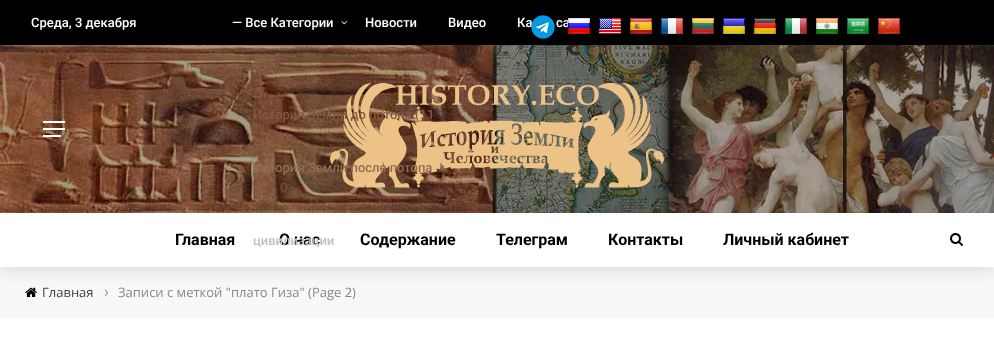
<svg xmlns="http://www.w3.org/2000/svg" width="994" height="360">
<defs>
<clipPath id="clip1"><path d="M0 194h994v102h-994zm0 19h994v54h-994z" clip-rule="evenodd"/></clipPath>
</defs>
<rect width="100%" height="100%" fill="#fff"/>
<rect width="994" height="45" fill="#000"/>
<text x="517" y="27" style="font-family:Roboto;font-size:13px;font-weight:500;fill:#fff">Ка</text>
<image x="531" y="15" width="24" height="24" href="media/1.png"/>
<text x="556" y="27" style="font-family:Roboto;font-size:13px;font-weight:500;fill:#fff">са</text>
<image x="567" y="18" width="23" height="16" href="media/2.png"/>
<image x="599" y="18" width="22" height="16" href="media/3.png"/>
<image x="630" y="18" width="22" height="16" href="media/4.png"/>
<image x="661" y="18" width="22" height="16" href="media/5.png"/>
<image x="692" y="18" width="22" height="16" href="media/6.png"/>
<image x="723" y="18" width="22" height="16" href="media/7.png"/>
<image x="754" y="18" width="22" height="16" href="media/8.png"/>
<image x="785" y="18" width="22" height="16" href="media/9.png"/>
<image x="816" y="18" width="22" height="16" href="media/10.png"/>
<image x="847" y="18" width="22" height="16" href="media/11.png"/>
<image x="878" y="18" width="22" height="16" href="media/12.png"/>
<image x="0" y="45" width="994" height="168" href="media/13.png"/>
<text x="31" y="27" style="font-family:Roboto;font-size:13px;font-weight:500;fill:#fff">Среда, 3 декабря</text>
<text x="232" y="27" style="font-family:Roboto;font-size:13px;font-weight:500;fill:#fff">— Все Категории</text>
<image x="341" y="21" width="6" height="4" href="media/14.png"/>
<image x="330" y="82" width="334" height="106" href="media/15.png"/>
<text x="253" y="119" style="font-family:Roboto;font-size:13px;font-weight:500;fill:#835a3f">История Земли до потопа (11</text>
<text x="253" y="172" style="font-family:Roboto;font-size:13px;font-weight:500;fill:#936e4d">История Земли после потопа</text>
<text x="280" y="192" style="font-family:Roboto;font-size:13px;font-weight:500;fill:#704d37">0</text>
<rect y="267" width="994" height="52" fill="#f8f8f8"/>
<image x="25" y="287" width="12" height="10" href="media/17.png"/>
<g clip-path="url(#clip1)">
<rect y="218" width="994" height="54" fill="#0000001a" filter="blur(7.5px)"/>
</g>
<text x="279" y="245" style="font-family:Roboto;font-size:16px;font-weight:bold;fill:#000">О нас</text>
<text x="253" y="245" style="font-family:Roboto;font-size:13px;font-weight:500;fill:#c0c0c0">цивилизации</text>
<text x="365" y="27" style="font-family:Roboto;font-size:13px;font-weight:500;fill:#fff">Новости</text>
<text x="448" y="27" style="font-family:Roboto;font-size:13px;font-weight:500;fill:#fff">Видео</text>
<rect x="43" y="121" width="22" height="2" fill="#fff"/>
<rect x="43" y="128" width="22" height="2" fill="#fff"/>
<rect x="43" y="135" width="18" height="2" fill="#fff"/>
<text x="175" y="245" style="font-family:Roboto;font-size:16px;font-weight:bold;fill:#000">Главная</text>
<text x="360" y="245" style="font-family:Roboto;font-size:16px;font-weight:bold;fill:#000">Содержание</text>
<text x="496" y="245" style="font-family:Roboto;font-size:16px;font-weight:bold;fill:#000">Телеграм</text>
<text x="608" y="245" style="font-family:Roboto;font-size:16px;font-weight:bold;fill:#000">Контакты</text>
<text x="723" y="245" style="font-family:Roboto;font-size:16px;font-weight:bold;fill:#000">Личный кабинет</text>
<image x="950" y="233" width="13" height="13" href="media/16.png"/>
<text x="42" y="297" style="font-family:Open Sans;font-size:13px;fill:#444">Главная</text>
<text x="104" y="297" style="font-family:Open Sans;font-size:16px;fill:#8d97a1">›</text>
<text x="118" y="297" style="font-family:Open Sans;font-size:13px;fill:#888">Записи с меткой "плато Гиза" (Page 2)</text>
</svg>
